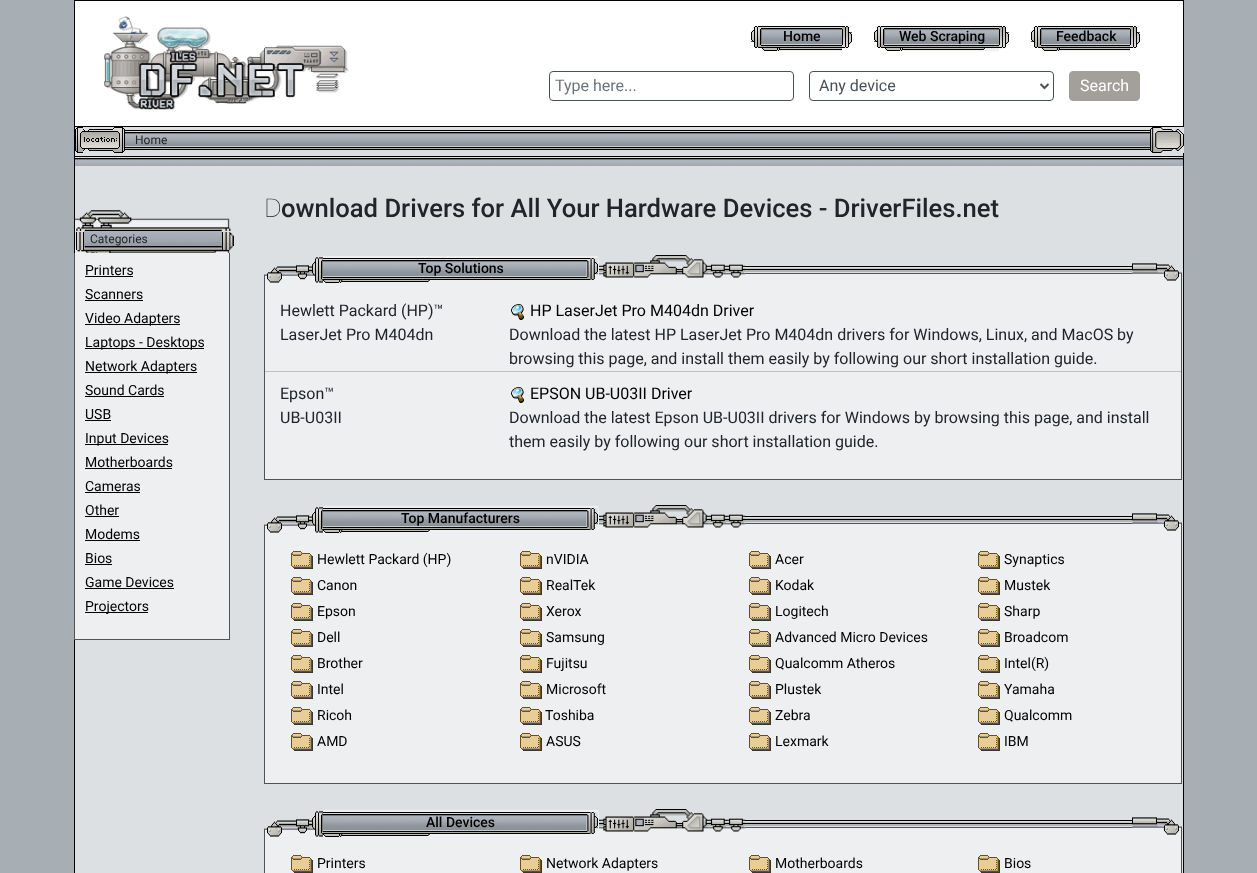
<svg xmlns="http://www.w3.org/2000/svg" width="1257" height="873">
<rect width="100%" height="100%" fill="#a7afb5"/>
<rect x="75" y="1" width="1108" height="125" fill="#fff"/>
<rect x="74" width="1110" height="1" fill="#000"/>
<rect x="1183" width="1" height="126" fill="#000"/>
<rect x="74" width="1" height="126" fill="#000"/>
<image x="104" y="16" width="246" height="94" href="media/1.png"/>
<image x="751" y="25" width="11" height="23" href="media/2.png"/>
<image x="762" y="26" width="80" height="25" href="media/3.png"/>
<text x="783" y="41" style="font-family:Roboto;font-size:14px;font-weight:500;fill:#000">Home</text>
<image x="842" y="26" width="10" height="23" href="media/4.png"/>
<image x="874" y="25" width="11" height="23" href="media/2.png"/>
<image x="885" y="26" width="114" height="25" href="media/5.png"/>
<text x="899" y="41" style="font-family:Roboto;font-size:14px;font-weight:500;fill:#000">Web Scraping</text>
<image x="999" y="26" width="10" height="23" href="media/4.png"/>
<image x="1031" y="25" width="11" height="23" href="media/2.png"/>
<image x="1042" y="26" width="88" height="25" href="media/6.png"/>
<text x="1056" y="41" style="font-family:Roboto;font-size:14px;font-weight:500;fill:#000">Feedback</text>
<image x="1130" y="26" width="10" height="23" href="media/4.png"/>
<rect x="549.5" y="71.5" width="244" height="29" rx="3.5" fill="none" stroke="#495057"/>
<text x="555" y="91" style="font-family:Roboto;font-size:16px;fill:#6c757d">Type here...</text>
<rect x="809.5" y="71.5" width="244" height="29" rx="3.5" fill="none" stroke="#495057"/>
<path d="M1040.5 84l4 4l4-4" fill="none" stroke="#495057" stroke-width="2"/>
<text x="819" y="91" style="font-family:Roboto;font-size:16px;fill:#495057">Any device</text>
<rect x="1069.5" y="71.5" width="70" height="29" rx="3.5" fill="#a3a09c" stroke="#a3a09c"/>
<text x="1080" y="91" style="font-family:Roboto;font-size:16px;fill:#fff">Search</text>
<rect x="74.5" y="126.5" width="1109" height="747" fill="none" stroke="#000"/>
<image x="75" y="127" width="1108" height="39" href="media/7.png"/>
<image x="1150" y="127" width="34" height="26" href="media/8.png"/>
<image x="75" y="127" width="50" height="26" href="media/9.png"/>
<text x="135" y="144" style="font-family:Roboto;font-size:12px;fill:#212529">Home</text>
<rect x="75" y="166" width="1108" height="707" fill="#dde0e3"/>
<image x="75" y="210" width="156" height="21" href="media/10.png"/>
<image x="75" y="246" width="156" height="13" href="media/14.png"/>
<image x="76" y="232" width="8" height="18" href="media/11.png"/>
<image x="84" y="231" width="138" height="15" href="media/12.png"/>
<text x="90" y="243" style="font-family:Roboto;font-size:12px;fill:#212529">Categories</text>
<image x="222" y="232" width="12" height="18" href="media/13.png"/>
<rect x="75" y="253" width="154" height="386" fill="#eeeff1"/>
<rect x="229" y="253" width="1" height="387" fill="#505457"/>
<rect x="74" y="639" width="156" height="1" fill="#505457"/>
<rect x="74" y="253" width="1" height="387" fill="#505457"/>
<text x="85" y="275" style="font-family:Roboto;font-size:14px;fill:#000">Printers</text>
<rect x="85" y="276" width="48" height="1" fill="#000"/>
<text x="85" y="299" style="font-family:Roboto;font-size:14px;fill:#000">Scanners</text>
<rect x="85" y="300" width="58" height="1" fill="#000"/>
<rect x="85" y="324" width="95" height="1" fill="#000"/>
<text x="85" y="323" style="font-family:Roboto;font-size:14px;fill:#000">Video Adapters</text>
<rect x="85" y="348" width="119" height="1" fill="#000"/>
<text x="85" y="347" style="font-family:Roboto;font-size:14px;fill:#000">Laptops - Desktops</text>
<rect x="85" y="372" width="112" height="1" fill="#000"/>
<text x="85" y="371" style="font-family:Roboto;font-size:14px;fill:#000">Network Adapters</text>
<text x="85" y="395" style="font-family:Roboto;font-size:14px;fill:#000">Sound Cards</text>
<rect x="85" y="396" width="79" height="1" fill="#000"/>
<text x="85" y="419" style="font-family:Roboto;font-size:14px;fill:#000">USB</text>
<rect x="85" y="420" width="26" height="1" fill="#000"/>
<rect x="85" y="444" width="83" height="1" fill="#000"/>
<text x="85" y="443" style="font-family:Roboto;font-size:14px;fill:#000">Input Devices</text>
<text x="85" y="467" style="font-family:Roboto;font-size:14px;fill:#000">Motherboards</text>
<rect x="85" y="468" width="87" height="1" fill="#000"/>
<text x="85" y="491" style="font-family:Roboto;font-size:14px;fill:#000">Cameras</text>
<rect x="85" y="492" width="55" height="1" fill="#000"/>
<text x="85" y="515" style="font-family:Roboto;font-size:14px;fill:#000">Other</text>
<rect x="85" y="516" width="34" height="1" fill="#000"/>
<text x="85" y="539" style="font-family:Roboto;font-size:14px;fill:#000">Modems</text>
<rect x="85" y="540" width="55" height="1" fill="#000"/>
<text x="85" y="563" style="font-family:Roboto;font-size:14px;fill:#000">Bios</text>
<rect x="85" y="564" width="27" height="1" fill="#000"/>
<text x="85" y="587" style="font-family:Roboto;font-size:14px;fill:#000">Game Devices</text>
<rect x="85" y="588" width="89" height="1" fill="#000"/>
<rect x="85" y="612" width="63" height="1" fill="#000"/>
<text x="85" y="611" style="font-family:Roboto;font-size:14px;fill:#000">Projectors</text>
<text x="264" y="217" style="font-family:Noto Sans;font-size:25.6px;font-weight:100;fill:#212529">D</text>
<text x="281" y="217" style="font-family:Roboto;font-size:25.6px;font-weight:500;fill:#212529">ownload Drivers for All Your Hardware Devices - DriverFiles.net</text>
<rect x="323" y="256" width="809" height="28" fill="#eeeff1"/>
<image x="264" y="256" width="59" height="28" href="media/15.png"/>
<image x="598" y="255" width="147" height="23" href="media/18.png"/>
<image x="323" y="258" width="276" height="26" href="media/16.png"/>
<text x="418" y="273" style="font-family:Roboto;font-size:14px;font-weight:500;fill:#000">Top Solutions</text>
<image x="745" y="256" width="102" height="18" href="media/17.png"/>
<image x="847" y="256" width="285" height="18" href="media/19.png"/>
<image x="1132" y="256" width="50" height="28" href="media/20.png"/>
<rect x="265" y="284" width="916" height="195" fill="#eeeff1"/>
<rect x="1181" y="284" width="1" height="196" fill="#505457"/>
<rect x="264" y="479" width="918" height="1" fill="#505457"/>
<rect x="264" y="284" width="1" height="196" fill="#505457"/>
<rect x="265" y="371" width="916" height="1" fill="#c0c0c0"/>
<text x="280" y="316" style="font-family:Roboto;font-size:16px;fill:#212529">Hewlett Packard (HP)™</text>
<text x="280" y="340" style="font-family:Roboto;font-size:16px;fill:#212529">LaserJet Pro M404dn</text>
<image x="511" y="304" width="13" height="16" href="media/21.png"/>
<text x="530" y="316" style="font-family:Roboto;font-size:16px;fill:#000">HP LaserJet Pro M404dn Driver</text>
<text x="509" y="340" style="font-family:Roboto;font-size:16px;fill:#212529">Download the latest HP LaserJet Pro M404dn drivers for Windows, Linux, and MacOS by</text>
<text x="509" y="364" style="font-family:Roboto;font-size:16px;fill:#212529">browsing this page, and install them easily by following our short installation guide.</text>
<text x="280" y="399" style="font-family:Roboto;font-size:16px;fill:#212529">Epson™</text>
<text x="280" y="423" style="font-family:Roboto;font-size:16px;fill:#212529">UB-U03II</text>
<image x="511" y="387" width="13" height="16" href="media/21.png"/>
<text x="530" y="399" style="font-family:Roboto;font-size:16px;fill:#000">EPSON UB-U03II Driver</text>
<text x="509" y="423" style="font-family:Roboto;font-size:16px;fill:#212529">Download the latest Epson UB-U03II drivers for Windows by browsing this page, and install</text>
<text x="509" y="447" style="font-family:Roboto;font-size:16px;fill:#212529">them easily by following our short installation guide.</text>
<rect x="323" y="506" width="809" height="28" fill="#eeeff1"/>
<image x="264" y="506" width="59" height="28" href="media/15.png"/>
<image x="598" y="505" width="147" height="23" href="media/18.png"/>
<image x="323" y="508" width="276" height="26" href="media/16.png"/>
<text x="401" y="523" style="font-family:Roboto;font-size:14px;font-weight:500;fill:#000">Top Manufacturers</text>
<image x="745" y="506" width="102" height="18" href="media/17.png"/>
<image x="847" y="506" width="285" height="18" href="media/19.png"/>
<image x="1132" y="506" width="50" height="28" href="media/20.png"/>
<rect x="265" y="534" width="916" height="249" fill="#eeeff1"/>
<rect x="1181" y="534" width="1" height="250" fill="#505457"/>
<rect x="264" y="783" width="918" height="1" fill="#505457"/>
<rect x="264" y="534" width="1" height="250" fill="#505457"/>
<image x="291" y="551" width="22" height="18" href="media/22.png"/>
<text x="317" y="564" style="font-family:Roboto;font-size:14px;fill:#000">Hewlett Packard (HP)</text>
<image x="291" y="577" width="22" height="18" href="media/22.png"/>
<text x="317" y="590" style="font-family:Roboto;font-size:14px;fill:#000">Canon</text>
<image x="291" y="603" width="22" height="18" href="media/22.png"/>
<text x="317" y="616" style="font-family:Roboto;font-size:14px;fill:#000">Epson</text>
<image x="291" y="629" width="22" height="18" href="media/22.png"/>
<text x="317" y="642" style="font-family:Roboto;font-size:14px;fill:#000">Dell</text>
<image x="291" y="655" width="22" height="18" href="media/22.png"/>
<text x="317" y="668" style="font-family:Roboto;font-size:14px;fill:#000">Brother</text>
<image x="291" y="681" width="22" height="18" href="media/22.png"/>
<text x="317" y="694" style="font-family:Roboto;font-size:14px;fill:#000">Intel</text>
<image x="291" y="707" width="22" height="18" href="media/22.png"/>
<text x="317" y="720" style="font-family:Roboto;font-size:14px;fill:#000">Ricoh</text>
<image x="291" y="733" width="22" height="18" href="media/22.png"/>
<text x="317" y="746" style="font-family:Roboto;font-size:14px;fill:#000">AMD</text>
<image x="520" y="551" width="22" height="18" href="media/22.png"/>
<text x="546" y="564" style="font-family:Roboto;font-size:14px;fill:#000">nVIDIA</text>
<image x="520" y="577" width="22" height="18" href="media/22.png"/>
<text x="546" y="590" style="font-family:Roboto;font-size:14px;fill:#000">RealTek</text>
<image x="520" y="603" width="22" height="18" href="media/22.png"/>
<text x="546" y="616" style="font-family:Roboto;font-size:14px;fill:#000">Xerox</text>
<image x="520" y="629" width="22" height="18" href="media/22.png"/>
<text x="546" y="642" style="font-family:Roboto;font-size:14px;fill:#000">Samsung</text>
<image x="520" y="655" width="22" height="18" href="media/22.png"/>
<text x="546" y="668" style="font-family:Roboto;font-size:14px;fill:#000">Fujitsu</text>
<image x="520" y="681" width="22" height="18" href="media/22.png"/>
<text x="546" y="694" style="font-family:Roboto;font-size:14px;fill:#000">Microsoft</text>
<image x="520" y="707" width="22" height="18" href="media/22.png"/>
<text x="545" y="720" style="font-family:Roboto;font-size:14px;fill:#000">Toshiba</text>
<image x="520" y="733" width="22" height="18" href="media/22.png"/>
<text x="546" y="746" style="font-family:Roboto;font-size:14px;fill:#000">ASUS</text>
<image x="749" y="551" width="22" height="18" href="media/22.png"/>
<text x="775" y="564" style="font-family:Roboto;font-size:14px;fill:#000">Acer</text>
<image x="749" y="577" width="22" height="18" href="media/22.png"/>
<text x="775" y="590" style="font-family:Roboto;font-size:14px;fill:#000">Kodak</text>
<image x="749" y="603" width="22" height="18" href="media/22.png"/>
<text x="775" y="616" style="font-family:Roboto;font-size:14px;fill:#000">Logitech</text>
<image x="749" y="629" width="22" height="18" href="media/22.png"/>
<text x="775" y="642" style="font-family:Roboto;font-size:14px;fill:#000">Advanced Micro Devices</text>
<image x="749" y="655" width="22" height="18" href="media/22.png"/>
<text x="775" y="668" style="font-family:Roboto;font-size:14px;fill:#000">Qualcomm Atheros</text>
<image x="749" y="681" width="22" height="18" href="media/22.png"/>
<text x="775" y="694" style="font-family:Roboto;font-size:14px;fill:#000">Plustek</text>
<image x="749" y="707" width="22" height="18" href="media/22.png"/>
<text x="775" y="720" style="font-family:Roboto;font-size:14px;fill:#000">Zebra</text>
<image x="749" y="733" width="22" height="18" href="media/22.png"/>
<text x="775" y="746" style="font-family:Roboto;font-size:14px;fill:#000">Lexmark</text>
<image x="978" y="551" width="22" height="18" href="media/22.png"/>
<text x="1004" y="564" style="font-family:Roboto;font-size:14px;fill:#000">Synaptics</text>
<image x="978" y="577" width="22" height="18" href="media/22.png"/>
<text x="1004" y="590" style="font-family:Roboto;font-size:14px;fill:#000">Mustek</text>
<image x="978" y="603" width="22" height="18" href="media/22.png"/>
<text x="1004" y="616" style="font-family:Roboto;font-size:14px;fill:#000">Sharp</text>
<image x="978" y="629" width="22" height="18" href="media/22.png"/>
<text x="1004" y="642" style="font-family:Roboto;font-size:14px;fill:#000">Broadcom</text>
<image x="978" y="655" width="22" height="18" href="media/22.png"/>
<text x="1004" y="668" style="font-family:Roboto;font-size:14px;fill:#000">Intel(R)</text>
<image x="978" y="681" width="22" height="18" href="media/22.png"/>
<text x="1004" y="694" style="font-family:Roboto;font-size:14px;fill:#000">Yamaha</text>
<image x="978" y="707" width="22" height="18" href="media/22.png"/>
<text x="1004" y="720" style="font-family:Roboto;font-size:14px;fill:#000">Qualcomm</text>
<image x="978" y="733" width="22" height="18" href="media/22.png"/>
<text x="1004" y="746" style="font-family:Roboto;font-size:14px;fill:#000">IBM</text>
<rect x="323" y="810" width="809" height="28" fill="#eeeff1"/>
<image x="264" y="810" width="59" height="28" href="media/15.png"/>
<image x="598" y="809" width="147" height="23" href="media/18.png"/>
<image x="323" y="812" width="276" height="26" href="media/16.png"/>
<text x="426" y="827" style="font-family:Roboto;font-size:14px;font-weight:500;fill:#000">All Devices</text>
<image x="745" y="810" width="102" height="18" href="media/17.png"/>
<image x="847" y="810" width="285" height="18" href="media/19.png"/>
<image x="1132" y="810" width="50" height="28" href="media/20.png"/>
<rect x="265" y="838" width="916" height="35" fill="#eeeff1"/>
<rect x="1181" y="838" width="1" height="35" fill="#505457"/>
<rect x="264" y="838" width="1" height="35" fill="#505457"/>
<image x="291" y="855" width="22" height="18" href="media/22.png"/>
<text x="317" y="868" style="font-family:Roboto;font-size:14px;fill:#000">Printers</text>
<image x="520" y="855" width="22" height="18" href="media/22.png"/>
<text x="546" y="868" style="font-family:Roboto;font-size:14px;fill:#000">Network Adapters</text>
<image x="749" y="855" width="22" height="18" href="media/22.png"/>
<text x="775" y="868" style="font-family:Roboto;font-size:14px;fill:#000">Motherboards</text>
<image x="978" y="855" width="22" height="18" href="media/22.png"/>
<text x="1004" y="868" style="font-family:Roboto;font-size:14px;fill:#000">Bios</text>
</svg>
